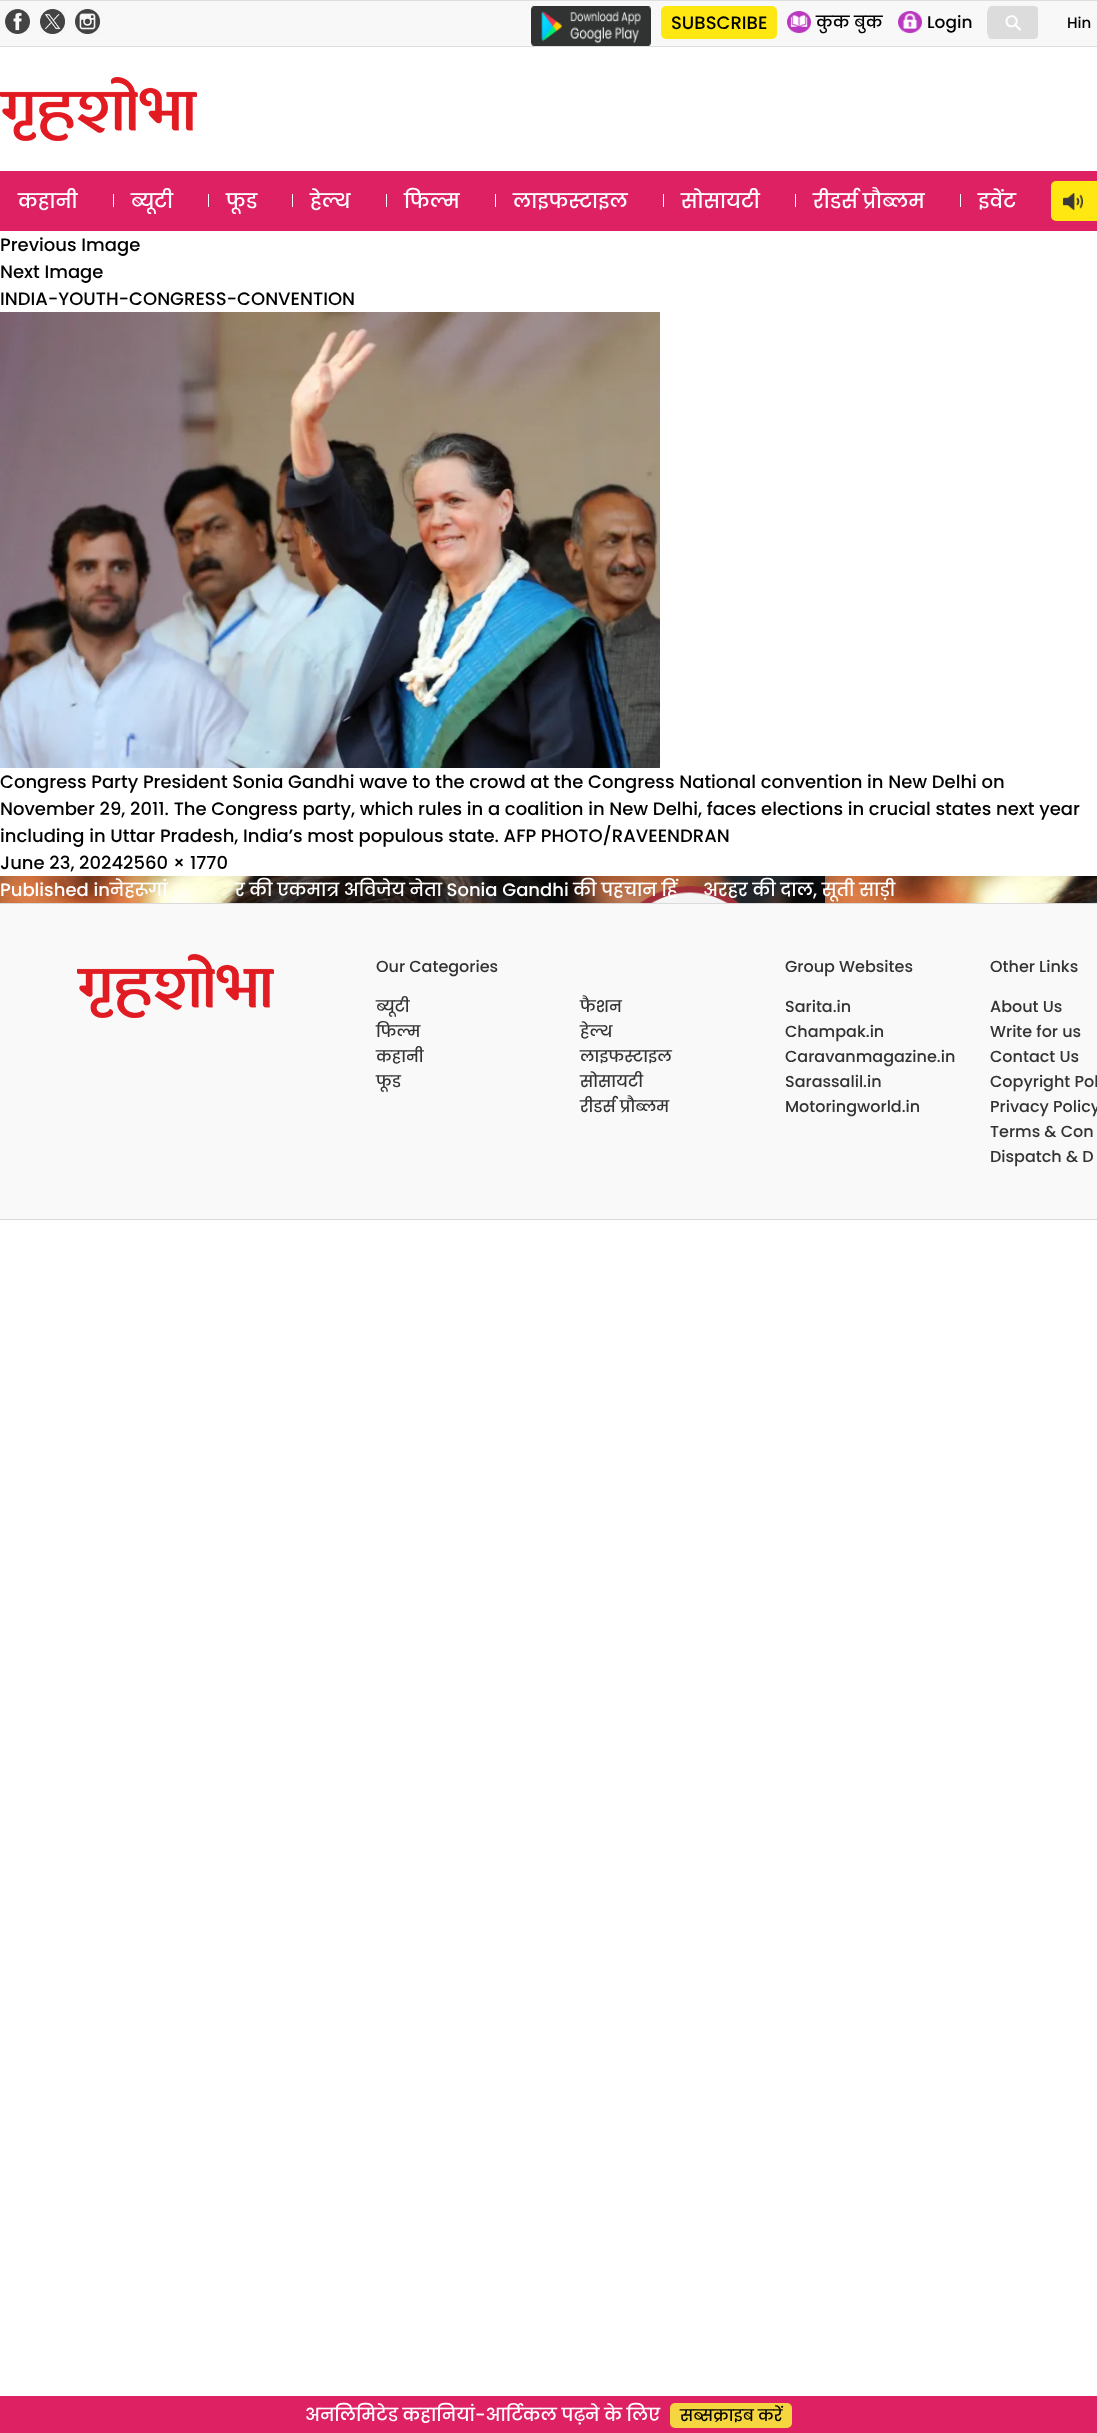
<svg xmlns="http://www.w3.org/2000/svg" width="1097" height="2433">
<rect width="100%" height="100%" fill="#fff"/>
<rect y="1" width="1097" height="45" fill="#f8f8f8"/>
<rect width="1097" height="1" fill="#dedede"/>
<rect y="46" width="1097" height="1" fill="#dedede"/>
<image x="5" y="9" width="25" height="25" href="media/1.png"/>
<image x="40" y="9" width="25" height="25" href="media/2.png"/>
<image x="75" y="9" width="25" height="25" href="media/3.png"/>
<image x="531" y="6" width="120" height="40" href="media/4.png"/>
<rect x="661" y="6" width="116" height="33" rx="5" fill="#ffe712"/>
<text x="671" y="29" style="font-family:Poppins;font-size:18px;font-weight:500;fill:#000">SUBSCRIBE</text>
<rect x="987" y="11" width="1" height="23" fill="#dcdcdc"/>
<image x="787" y="11" width="24" height="22" href="media/5.png"/>
<text x="816" y="28" style="font-family:Poppins;font-size:17px;font-weight:500;fill:#000">कुक बुक</text>
<image x="898" y="11" width="24" height="22" href="media/6.png"/>
<text x="927" y="28" style="font-family:Poppins;font-size:17px;font-weight:500;fill:#000">Login</text>
<rect x="988" y="6" width="50" height="33" rx="4" fill="#dcdcdc"/>
<text x="1013" y="34" transform="rotate(-45 1013 34)" style="font-family:DejaVu Sans;font-size:22px;fill:#fff">⚲</text>
<text x="1067" y="28" style="font-family:Poppins;font-size:15px;font-weight:500;fill:#000">Hin</text>
<image x="0" y="77" width="197" height="64" href="media/7.png"/>
<rect y="171" width="1097" height="60" fill="#dd2163"/>
<text x="18" y="208" style="font-family:Poppins;font-size:20px;font-weight:500;fill:#fff">कहानी</text>
<rect x="113" y="194" width="1" height="13" fill="#fff"/>
<text x="131" y="208" style="font-family:Poppins;font-size:20px;font-weight:500;fill:#fff">ब्यूटी</text>
<rect x="208" y="194" width="1" height="13" fill="#fff"/>
<text x="226" y="208" style="font-family:Poppins;font-size:20px;font-weight:500;fill:#fff">फूड</text>
<rect x="292" y="194" width="1" height="13" fill="#fff"/>
<text x="310" y="208" style="font-family:Poppins;font-size:20px;font-weight:500;fill:#fff">हेल्थ</text>
<rect x="386" y="194" width="1" height="13" fill="#fff"/>
<text x="404" y="208" style="font-family:Poppins;font-size:20px;font-weight:500;fill:#fff">फिल्म</text>
<rect x="495" y="194" width="1" height="13" fill="#fff"/>
<text x="513" y="208" style="font-family:Poppins;font-size:20px;font-weight:500;fill:#fff">लाइफस्टाइल</text>
<rect x="663" y="194" width="1" height="13" fill="#fff"/>
<text x="681" y="208" style="font-family:Poppins;font-size:20px;font-weight:500;fill:#fff">सोसायटी</text>
<rect x="795" y="194" width="1" height="13" fill="#fff"/>
<text x="813" y="208" style="font-family:Poppins;font-size:20px;font-weight:500;fill:#fff">रीडर्स प्रौब्लम</text>
<rect x="960" y="194" width="1" height="13" fill="#fff"/>
<text x="978" y="208" style="font-family:Poppins;font-size:20px;font-weight:500;fill:#fff">इवेंट</text>
<rect x="1051" y="181" width="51" height="40" rx="5" fill="#ffe712"/>
<image x="1063" y="193" width="20" height="17" href="media/8.png"/>
<text x="0" y="251" style="font-family:Poppins;font-size:18px;font-weight:500;fill:#000">Previous Image</text>
<text x="0" y="278" style="font-family:Poppins;font-size:18px;font-weight:500;fill:#000">Next Image</text>
<text x="0" y="305" style="font-family:Poppins;font-size:18px;font-weight:500;fill:#000">INDIA-YOUTH-CONGRESS-CONVENTION</text>
<image x="0" y="312" width="660" height="456" href="media/9.png"/>
<text x="0" y="788" style="font-family:Poppins;font-size:18px;font-weight:500;fill:#000">Congress Party President Sonia Gandhi wave to the crowd at the Congress National convention in New Delhi on</text>
<text x="0" y="815" style="font-family:Poppins;font-size:18px;font-weight:500;fill:#000">November 29, 2011. The Congress party, which rules in a coalition in New Delhi, faces elections in crucial states next year</text>
<text x="0" y="842" style="font-family:Poppins;font-size:18px;font-weight:500;fill:#000">including in Uttar Pradesh, India’s most populous state. AFP PHOTO/RAVEENDRAN</text>
<text x="0" y="869" style="font-family:Poppins;font-size:18px;font-weight:500;fill:#000">June 23, 20242560 × 1770</text>
<image x="0" y="876" width="1097" height="27" href="media/10.png"/>
<text x="0" y="896" style="font-family:Poppins;font-size:18px;font-weight:500;fill:#fff">Published inनेहरूगां</text>
<text x="235" y="896" style="font-family:Poppins;font-size:18px;font-weight:500;fill:#fff">र की एकमात्र अविजेय नेता Sonia Gandhi की पहचान हिं</text>
<text x="703" y="896" style="font-family:Poppins;font-size:18px;font-weight:500;fill:#fff">अरहर की दाल, सूती साड़ी</text>
<rect y="904" width="1097" height="315" fill="#f9f9f9"/>
<rect y="903" width="1097" height="1" fill="#dbdbdb"/>
<rect y="1219" width="1097" height="1" fill="#dbdbdb"/>
<image x="77" y="954" width="197" height="64" href="media/11.png"/>
<text x="376" y="972" style="font-family:Poppins;font-size:16px;font-weight:500;fill:#333">Our Categories</text>
<text x="376" y="1012" style="font-family:Poppins;font-size:16px;font-weight:500;fill:#333">ब्यूटी</text>
<text x="376" y="1037" style="font-family:Poppins;font-size:16px;font-weight:500;fill:#333">फिल्म</text>
<text x="376" y="1062" style="font-family:Poppins;font-size:16px;font-weight:500;fill:#333">कहानी</text>
<text x="376" y="1087" style="font-family:Poppins;font-size:16px;font-weight:500;fill:#333">फूड</text>
<text x="580" y="1012" style="font-family:Poppins;font-size:16px;font-weight:500;fill:#333">फैशन</text>
<text x="580" y="1037" style="font-family:Poppins;font-size:16px;font-weight:500;fill:#333">हेल्थ</text>
<text x="580" y="1062" style="font-family:Poppins;font-size:16px;font-weight:500;fill:#333">लाइफस्टाइल</text>
<text x="580" y="1087" style="font-family:Poppins;font-size:16px;font-weight:500;fill:#333">सोसायटी</text>
<text x="580" y="1112" style="font-family:Poppins;font-size:16px;font-weight:500;fill:#333">रीडर्स प्रौब्लम</text>
<text x="785" y="972" style="font-family:Poppins;font-size:16px;font-weight:500;fill:#333">Group Websites</text>
<text x="785" y="1012" style="font-family:Poppins;font-size:16px;font-weight:500;fill:#333">Sarita.in</text>
<text x="785" y="1037" style="font-family:Poppins;font-size:16px;font-weight:500;fill:#333">Champak.in</text>
<text x="785" y="1062" style="font-family:Poppins;font-size:16px;font-weight:500;fill:#333">Caravanmagazine.in</text>
<text x="785" y="1087" style="font-family:Poppins;font-size:16px;font-weight:500;fill:#333">Sarassalil.in</text>
<text x="785" y="1112" style="font-family:Poppins;font-size:16px;font-weight:500;fill:#333">Motoringworld.in</text>
<text x="990" y="972" style="font-family:Poppins;font-size:16px;font-weight:500;fill:#333">Other Links</text>
<text x="990" y="1012" style="font-family:Poppins;font-size:16px;font-weight:500;fill:#333">About Us</text>
<text x="990" y="1037" style="font-family:Poppins;font-size:16px;font-weight:500;fill:#333">Write for us</text>
<text x="990" y="1062" style="font-family:Poppins;font-size:16px;font-weight:500;fill:#333">Contact Us</text>
<text x="990" y="1087" style="font-family:Poppins;font-size:16px;font-weight:500;fill:#333">Copyright Pol</text>
<text x="990" y="1112" style="font-family:Poppins;font-size:16px;font-weight:500;fill:#333">Privacy Policy</text>
<text x="990" y="1137" style="font-family:Poppins;font-size:16px;font-weight:500;fill:#333">Terms &amp; Con</text>
<text x="990" y="1162" style="font-family:Poppins;font-size:16px;font-weight:500;fill:#333">Dispatch &amp; D</text>
<rect y="2396" width="1097" height="37" fill="#dd2163"/>
<text x="305" y="2421" style="font-family:Poppins;font-size:18px;font-weight:500;fill:#fff">अनलिमिटेड कहानियां-आर्टिकल पढ़ने के लिए</text>
<rect x="670" y="2403" width="122" height="25" rx="5" fill="#f5d540"/>
<text x="680" y="2421" style="font-family:Poppins;font-size:16px;font-weight:500;fill:#000">सब्सक्राइब करें</text>
</svg>
